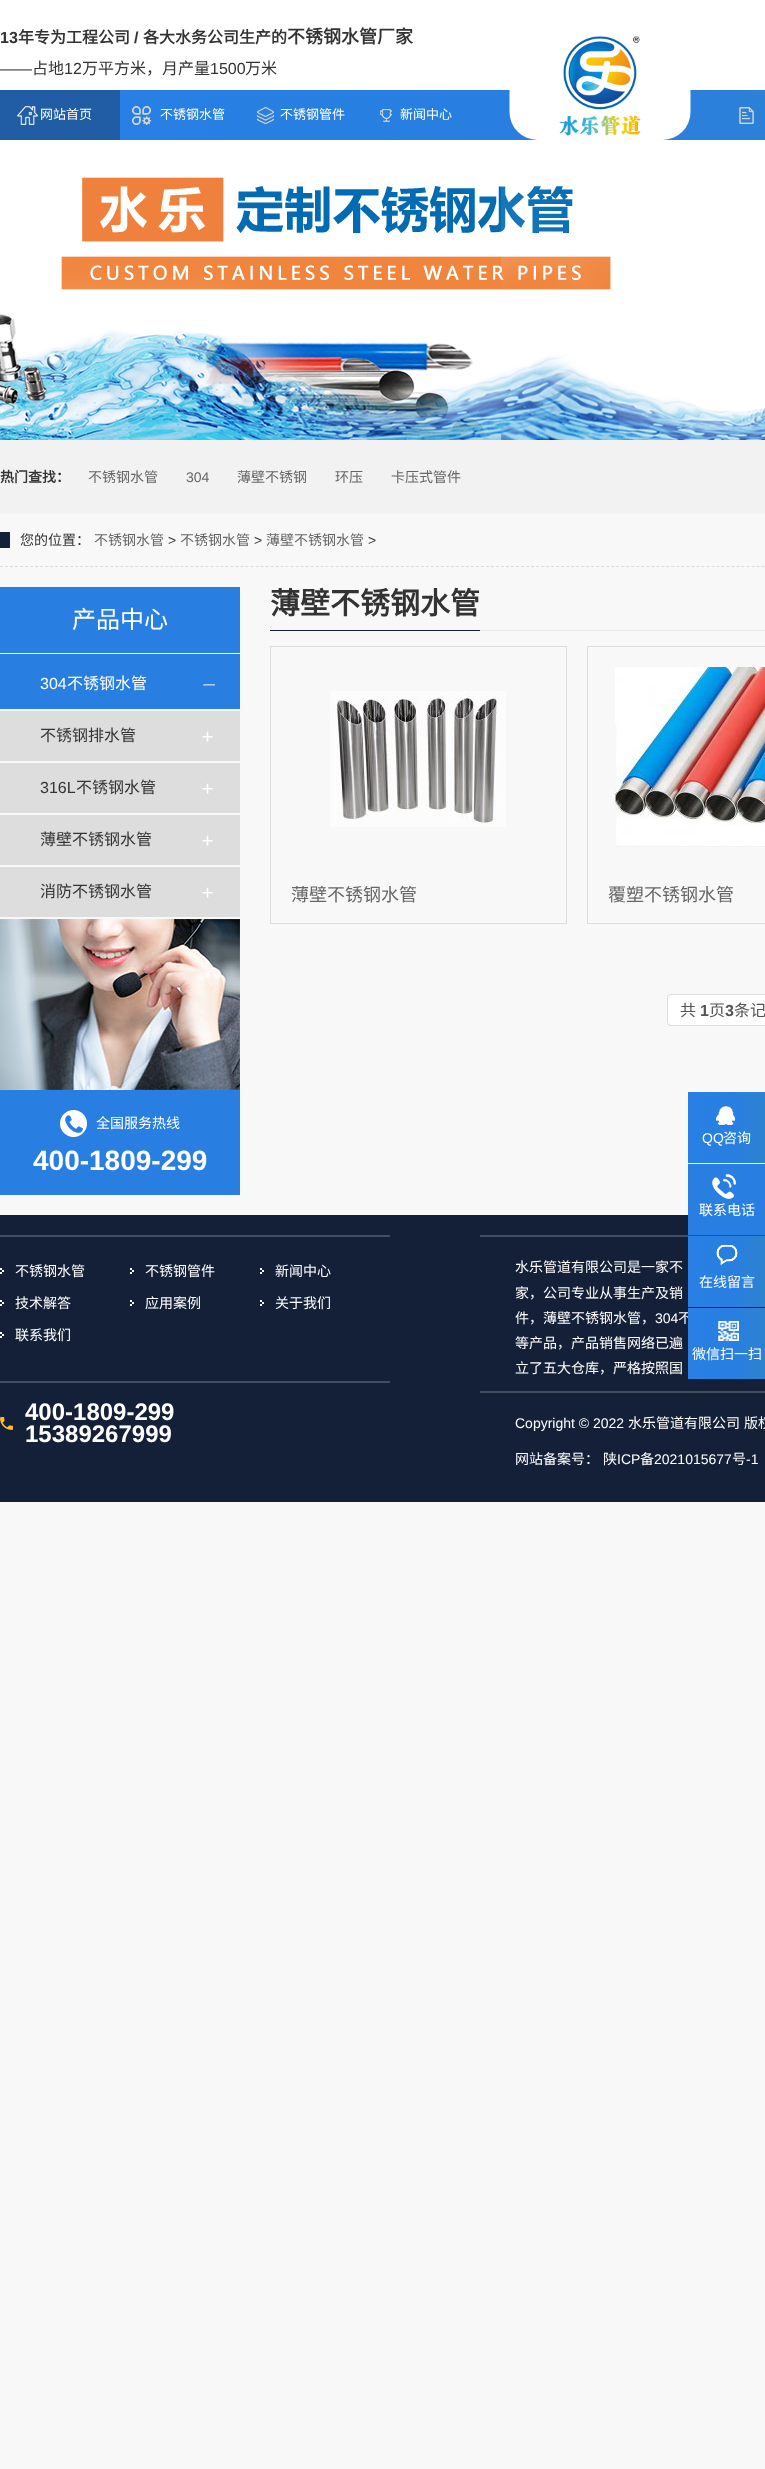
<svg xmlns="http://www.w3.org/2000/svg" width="765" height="2469">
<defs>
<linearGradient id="g1" gradientUnits="userSpaceOnUse" x1="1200" y1="90" x2="0" y2="90"><stop offset="0" stop-color="#3384c3"/><stop offset="0.52" stop-color="#287fe1"/><stop offset="1" stop-color="#297fe4"/></linearGradient>
<linearGradient id="g2" gradientUnits="userSpaceOnUse" x1="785" y1="1092" x2="688" y2="1092"><stop offset="0" stop-color="#3384c3"/><stop offset="0.52" stop-color="#287fe1"/><stop offset="1" stop-color="#297fe4"/></linearGradient>
<linearGradient id="g3" gradientUnits="userSpaceOnUse" x1="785" y1="1236" x2="688" y2="1236"><stop offset="0" stop-color="#3384c3"/><stop offset="0.52" stop-color="#287fe1"/><stop offset="1" stop-color="#297fe4"/></linearGradient>
<linearGradient id="g4" gradientUnits="userSpaceOnUse" x1="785" y1="1308" x2="688" y2="1308"><stop offset="0" stop-color="#3384c3"/><stop offset="0.52" stop-color="#287fe1"/><stop offset="1" stop-color="#297fe4"/></linearGradient>
</defs>
<rect width="100%" height="100%" fill="#f8f8f8"/>
<rect width="765" height="90" fill="#fff"/>
<text x="0" y="43" style="font-family:Liberation Sans;font-size:16px;font-weight:bold;fill:#333">13</text>
<text x="18" y="43" style="font-family:Noto Sans CJK SC;font-size:16px;font-weight:bold;fill:#333">年专为工程公司</text>
<text x="134" y="43" style="font-family:Liberation Sans;font-size:16px;font-weight:bold;fill:#333">/</text>
<text x="143" y="43" style="font-family:Noto Sans CJK SC;font-size:16px;font-weight:bold;fill:#333">各大水务公司生产的</text>
<text x="287" y="43" style="font-family:Noto Sans CJK SC;font-size:18px;font-weight:bold;fill:#333">不锈钢水管厂家</text>
<text x="0" y="74" style="font-family:Liberation Sans;font-size:16px;fill:#333">——</text>
<text x="32" y="74" style="font-family:Noto Sans CJK SC;font-size:16px;fill:#333">占地</text>
<text x="64" y="74" style="font-family:Liberation Sans;font-size:16px;fill:#333">12</text>
<text x="82" y="74" style="font-family:Noto Sans CJK SC;font-size:16px;fill:#333">万平方米，月产量</text>
<text x="210" y="74" style="font-family:Liberation Sans;font-size:16px;fill:#333">1500</text>
<text x="245" y="74" style="font-family:Noto Sans CJK SC;font-size:16px;fill:#333">万米</text>
<rect x="120" y="90" width="645" height="50" fill="url(#g1)"/>
<image x="509" y="36" width="182" height="104" href="media/1.png"/>
<rect y="90" width="120" height="50" fill="#205da5"/>
<image x="17" y="106" width="21" height="19" href="media/2.png"/>
<text x="40" y="119" style="font-family:Noto Sans CJK SC;font-size:13px;fill:#fff">网站首页</text>
<image x="132" y="106" width="19" height="19" href="media/3.png"/>
<text x="160" y="119" style="font-family:Noto Sans CJK SC;font-size:13px;fill:#fff">不锈钢水管</text>
<image x="257" y="107" width="17" height="17" href="media/4.png"/>
<text x="280" y="119" style="font-family:Noto Sans CJK SC;font-size:13px;fill:#fff">不锈钢管件</text>
<image x="380" y="109" width="12" height="13" href="media/5.png"/>
<text x="400" y="119" style="font-family:Noto Sans CJK SC;font-size:13px;fill:#fff">新闻中心</text>
<image x="739" y="107" width="15" height="17" href="media/6.png"/>
<image x="0" y="140" width="765" height="300" href="media/7.png"/>
<rect y="440" width="765" height="74" fill="#f2f2f2"/>
<text x="0" y="482" style="font-family:Noto Sans CJK SC;font-size:14px;font-weight:bold;fill:#333">热门查找：</text>
<text x="88" y="482" style="font-family:Noto Sans CJK SC;font-size:14px;fill:#666">不锈钢水管</text>
<text x="186" y="482" style="font-family:Liberation Sans;font-size:14px;fill:#666">304</text>
<text x="237" y="482" style="font-family:Noto Sans CJK SC;font-size:14px;fill:#666">薄壁不锈钢</text>
<text x="335" y="482" style="font-family:Noto Sans CJK SC;font-size:14px;fill:#666">环压</text>
<text x="391" y="482" style="font-family:Noto Sans CJK SC;font-size:14px;fill:#666">卡压式管件</text>
<path d="M0 566.5h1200" fill="none" stroke="#dcdcdc" stroke-dasharray="3 2.01"/>
<text x="20" y="545" style="font-family:Noto Sans CJK SC;font-size:14px;fill:#333">您的位置：</text>
<rect y="532" width="10" height="16" fill="#142038"/>
<text x="94" y="545" style="font-family:Noto Sans CJK SC;font-size:14px;fill:#666">不锈钢水管</text>
<text x="168" y="545" style="font-family:Liberation Sans;font-size:14px;fill:#333">&gt;</text>
<text x="180" y="545" style="font-family:Noto Sans CJK SC;font-size:14px;fill:#666">不锈钢水管</text>
<text x="254" y="545" style="font-family:Liberation Sans;font-size:14px;fill:#333">&gt;</text>
<text x="266" y="545" style="font-family:Noto Sans CJK SC;font-size:14px;fill:#666">薄壁不锈钢水管</text>
<text x="368" y="545" style="font-family:Liberation Sans;font-size:14px;fill:#333">&gt;</text>
<rect y="587" width="240" height="122" fill="#287fe1"/>
<rect y="653" width="240" height="1" fill="#fff"/>
<text x="72" y="628" style="font-family:Noto Sans CJK SC;font-size:24px;fill:#fff">产品中心</text>
<image x="203" y="684" width="12" height="2" href="media/8.png"/>
<text x="40" y="689" style="font-family:Liberation Sans;font-size:16px;fill:#fff">304</text>
<text x="67" y="689" style="font-family:Noto Sans CJK SC;font-size:16px;fill:#fff">不锈钢水管</text>
<rect y="711" width="240" height="50" fill="#ddd"/>
<image x="202" y="731" width="11" height="11" href="media/9.png"/>
<text x="40" y="741" style="font-family:Noto Sans CJK SC;font-size:16px;fill:#333">不锈钢排水管</text>
<rect y="763" width="240" height="50" fill="#ddd"/>
<image x="202" y="783" width="11" height="11" href="media/9.png"/>
<text x="40" y="793" style="font-family:Liberation Sans;font-size:16px;fill:#333">316L</text>
<text x="76" y="793" style="font-family:Noto Sans CJK SC;font-size:16px;fill:#333">不锈钢水管</text>
<rect y="815" width="240" height="50" fill="#ddd"/>
<image x="202" y="835" width="11" height="11" href="media/9.png"/>
<text x="40" y="845" style="font-family:Noto Sans CJK SC;font-size:16px;fill:#333">薄壁不锈钢水管</text>
<rect y="867" width="240" height="50" fill="#ddd"/>
<image x="202" y="887" width="11" height="11" href="media/9.png"/>
<text x="40" y="897" style="font-family:Noto Sans CJK SC;font-size:16px;fill:#333">消防不锈钢水管</text>
<image x="0" y="919" width="240" height="171" href="media/10.png"/>
<rect y="1090" width="240" height="105" fill="#287fe1"/>
<image x="60" y="1110" width="27" height="27" href="media/11.png"/>
<text x="96" y="1128" style="font-family:Noto Sans CJK SC;font-size:14px;fill:#fff">全国服务热线</text>
<text x="33" y="1170" style="font-family:Liberation Sans;font-size:28px;font-weight:bold;fill:#fff">400-1809-299</text>
<rect x="480" y="630" width="285" height="1" fill="#ececeb"/>
<rect x="270" y="630" width="210" height="1" fill="#142038"/>
<text x="270" y="614" style="font-family:Noto Sans CJK SC;font-size:30px;font-weight:bold;fill:#333">薄壁不锈钢水管</text>
<rect x="270.5" y="646.5" width="296" height="277" fill="none" stroke="#ddd"/>
<image x="330" y="691" width="176" height="136" href="media/12.png"/>
<text x="291" y="901" style="font-family:Noto Sans CJK SC;font-size:18px;fill:#666">薄壁不锈钢水管</text>
<rect x="587.5" y="646.5" width="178" height="277" fill="none" stroke="#ddd"/>
<image x="615" y="667" width="150" height="180" href="media/13.png"/>
<text x="608" y="901" style="font-family:Noto Sans CJK SC;font-size:18px;fill:#666">覆塑不锈钢水管</text>
<rect x="667.5" y="994.5" width="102" height="31" rx="3.5" fill="#fff" stroke="#ddd"/>
<text x="680" y="1016" style="font-family:Noto Sans CJK SC;font-size:16px;fill:#555">共</text>
<text x="700" y="1016" style="font-family:Liberation Sans;font-size:16px;font-weight:bold;fill:#555">1</text>
<text x="709" y="1016" style="font-family:Noto Sans CJK SC;font-size:16px;fill:#555">页</text>
<text x="725" y="1016" style="font-family:Liberation Sans;font-size:16px;font-weight:bold;fill:#555">3</text>
<text x="734" y="1016" style="font-family:Noto Sans CJK SC;font-size:16px;fill:#555">条记</text>
<rect x="688" y="1092" width="77" height="71" fill="url(#g2)"/>
<image x="716" y="1106" width="19" height="19" href="media/14.png"/>
<text x="702" y="1143" style="font-family:Liberation Sans;font-size:14px;fill:#fff">QQ</text>
<text x="723" y="1143" style="font-family:Noto Sans CJK SC;font-size:14px;fill:#fff">咨询</text>
<rect y="1215" width="765" height="287" fill="#142038"/>
<rect x="688" y="1164" width="77" height="71" fill="#287fe1"/>
<image x="712" y="1174" width="24" height="25" href="media/15.png"/>
<text x="699" y="1215" style="font-family:Noto Sans CJK SC;font-size:14px;fill:#fff">联系电话</text>
<rect x="480" y="1235" width="285" height="2" fill="#434d60"/>
<rect x="688" y="1236" width="77" height="71" fill="url(#g3)"/>
<image x="716" y="1245" width="22" height="21" href="media/16.png"/>
<text x="699" y="1287" style="font-family:Noto Sans CJK SC;font-size:14px;fill:#fff">在线留言</text>
<text x="678" y="1323" style="font-family:Noto Sans CJK SC;font-size:14px;fill:#fff">不</text>
<rect x="688" y="1308" width="77" height="71" fill="url(#g4)"/>
<image x="718" y="1321" width="21" height="20" href="media/17.png"/>
<text x="692" y="1359" style="font-family:Noto Sans CJK SC;font-size:14px;fill:#fff">微信扫一扫</text>
<rect y="1235" width="390" height="2" fill="#434d60"/>
<image x="0" y="1268" width="4" height="6" href="media/18.png"/>
<text x="15" y="1276" style="font-family:Noto Sans CJK SC;font-size:14px;fill:#fff">不锈钢水管</text>
<image x="130" y="1268" width="4" height="6" href="media/18.png"/>
<text x="145" y="1276" style="font-family:Noto Sans CJK SC;font-size:14px;fill:#fff">不锈钢管件</text>
<image x="260" y="1268" width="4" height="6" href="media/18.png"/>
<text x="275" y="1276" style="font-family:Noto Sans CJK SC;font-size:14px;fill:#fff">新闻中心</text>
<image x="0" y="1300" width="4" height="6" href="media/18.png"/>
<text x="15" y="1308" style="font-family:Noto Sans CJK SC;font-size:14px;fill:#fff">技术解答</text>
<image x="130" y="1300" width="4" height="6" href="media/18.png"/>
<text x="145" y="1308" style="font-family:Noto Sans CJK SC;font-size:14px;fill:#fff">应用案例</text>
<image x="260" y="1300" width="4" height="6" href="media/18.png"/>
<text x="275" y="1308" style="font-family:Noto Sans CJK SC;font-size:14px;fill:#fff">关于我们</text>
<image x="0" y="1332" width="4" height="6" href="media/18.png"/>
<text x="15" y="1340" style="font-family:Noto Sans CJK SC;font-size:14px;fill:#fff">联系我们</text>
<rect y="1381" width="390" height="2" fill="#434d60"/>
<image x="0" y="1417" width="13" height="13" href="media/19.png"/>
<text x="25" y="1420" style="font-family:Liberation Sans;font-size:24px;font-weight:bold;fill:#fff">400-1809-299</text>
<text x="25" y="1442" style="font-family:Liberation Sans;font-size:24px;font-weight:bold;fill:#fff">15389267999</text>
<text x="515" y="1272" style="font-family:Noto Sans CJK SC;font-size:14px;fill:#fff">水乐管道有限公司是一家不</text>
<text x="515" y="1298" style="font-family:Noto Sans CJK SC;font-size:14px;fill:#fff">家，公司专业从事生产及销</text>
<text x="515" y="1323" style="font-family:Noto Sans CJK SC;font-size:14px;fill:#fff">件，薄壁不锈钢水管，</text>
<text x="655" y="1323" style="font-family:Liberation Sans;font-size:14px;fill:#fff">304</text>
<text x="515" y="1348" style="font-family:Noto Sans CJK SC;font-size:14px;fill:#fff">等产品，产品销售网络已遍</text>
<text x="515" y="1373" style="font-family:Noto Sans CJK SC;font-size:14px;fill:#fff">立了五大仓库，严格按照国</text>
<rect x="480" y="1391" width="285" height="2" fill="#434d60"/>
<text x="515" y="1428" style="font-family:Liberation Sans;font-size:14px;fill:#fff">Copyright © 2022</text>
<text x="628" y="1428" style="font-family:Noto Sans CJK SC;font-size:14px;fill:#fff">水乐管道有限公司</text>
<text x="744" y="1428" style="font-family:Noto Sans CJK SC;font-size:14px;fill:#fff">版权</text>
<text x="515" y="1464" style="font-family:Noto Sans CJK SC;font-size:14px;fill:#fff">网站备案号：</text>
<text x="603" y="1464" style="font-family:Noto Sans CJK SC;font-size:14px;fill:#fff">陕</text>
<text x="617" y="1464" style="font-family:Liberation Sans;font-size:14px;fill:#fff">ICP</text>
<text x="640" y="1464" style="font-family:Noto Sans CJK SC;font-size:14px;fill:#fff">备</text>
<text x="654" y="1464" style="font-family:Liberation Sans;font-size:14px;fill:#fff">2021015677</text>
<text x="732" y="1464" style="font-family:Noto Sans CJK SC;font-size:14px;fill:#fff">号</text>
<text x="746" y="1464" style="font-family:Liberation Sans;font-size:14px;fill:#fff">-1</text>
</svg>
